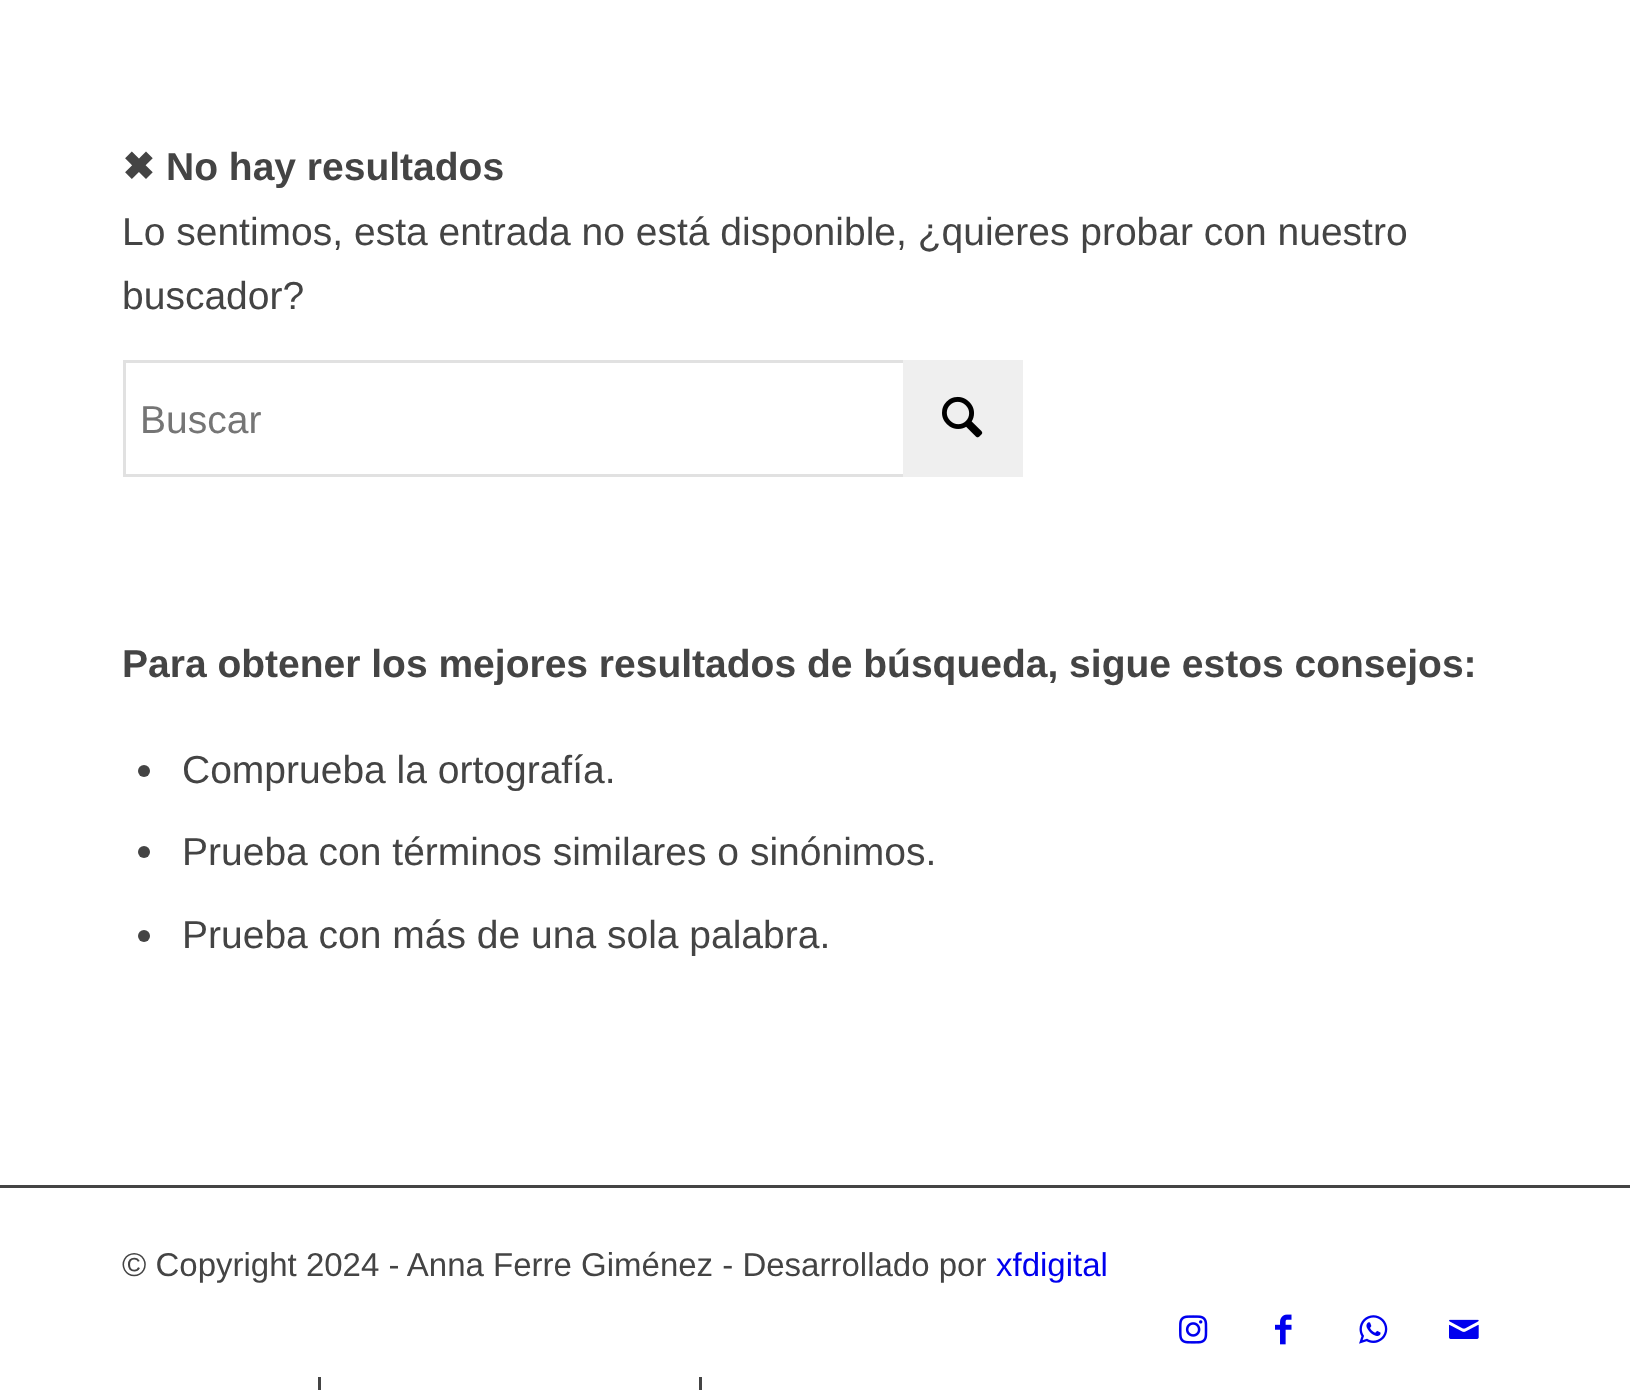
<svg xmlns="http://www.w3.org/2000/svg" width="1630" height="1390">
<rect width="100%" height="100%" fill="#fff"/>
<text x="122" y="180" style="font-family:DejaVu Sans;font-size:39px;font-weight:bold;fill:#444">✖</text>
<text x="166" y="180" style="font-family:Liberation Sans;font-size:39px;font-weight:bold;fill:#444">No hay resultados</text>
<text x="122" y="245" style="font-family:Liberation Sans;font-size:39px;fill:#444">Lo sentimos, esta entrada no está disponible, ¿quieres probar con nuestro</text>
<text x="122" y="309" style="font-family:Liberation Sans;font-size:39px;fill:#444">buscador?</text>
<rect x="124.5" y="361.5" width="897" height="114" fill="none" stroke="#e1e1e1" stroke-width="3"/>
<text x="140" y="433" style="font-family:Liberation Sans;font-size:39px;fill:#757575">Buscar</text>
<rect x="903" y="360" width="120" height="117" fill="#efefef"/>
<image x="942" y="396" width="41" height="42" href="media/1.png"/>
<text x="122" y="677" style="font-family:Liberation Sans;font-size:39px;font-weight:bold;fill:#444">Para obtener los mejores resultados de búsqueda, sigue estos consejos:</text>
<circle cx="144" cy="771" r="6" fill="#444"/>
<text x="182" y="783" style="font-family:Liberation Sans;font-size:39px;fill:#444">Comprueba la ortografía.</text>
<circle cx="144" cy="852" r="6" fill="#444"/>
<text x="182" y="865" style="font-family:Liberation Sans;font-size:39px;fill:#444">Prueba con términos similares o sinónimos.</text>
<circle cx="144" cy="936" r="6" fill="#444"/>
<text x="182" y="948" style="font-family:Liberation Sans;font-size:39px;fill:#444">Prueba con más de una sola palabra.</text>
<rect y="1185" width="1630" height="3" fill="#444"/>
<text x="122" y="1276" style="font-family:Liberation Sans;font-size:33px;fill:#444">© Copyright 2024 - Anna Ferre Giménez - Desarrollado por</text>
<text x="996" y="1276" style="font-family:Liberation Sans;font-size:33px;fill:#00e">xfdigital</text>
<image x="1179" y="1315" width="29" height="29" href="media/2.png"/>
<image x="1275" y="1314" width="17" height="31" href="media/3.png"/>
<image x="1359" y="1315" width="29" height="29" href="media/4.png"/>
<image x="1449" y="1319" width="30" height="20" href="media/5.png"/>
<rect x="318" y="1377" width="3" height="13" fill="#444"/>
<rect x="699" y="1377" width="3" height="13" fill="#444"/>
</svg>
